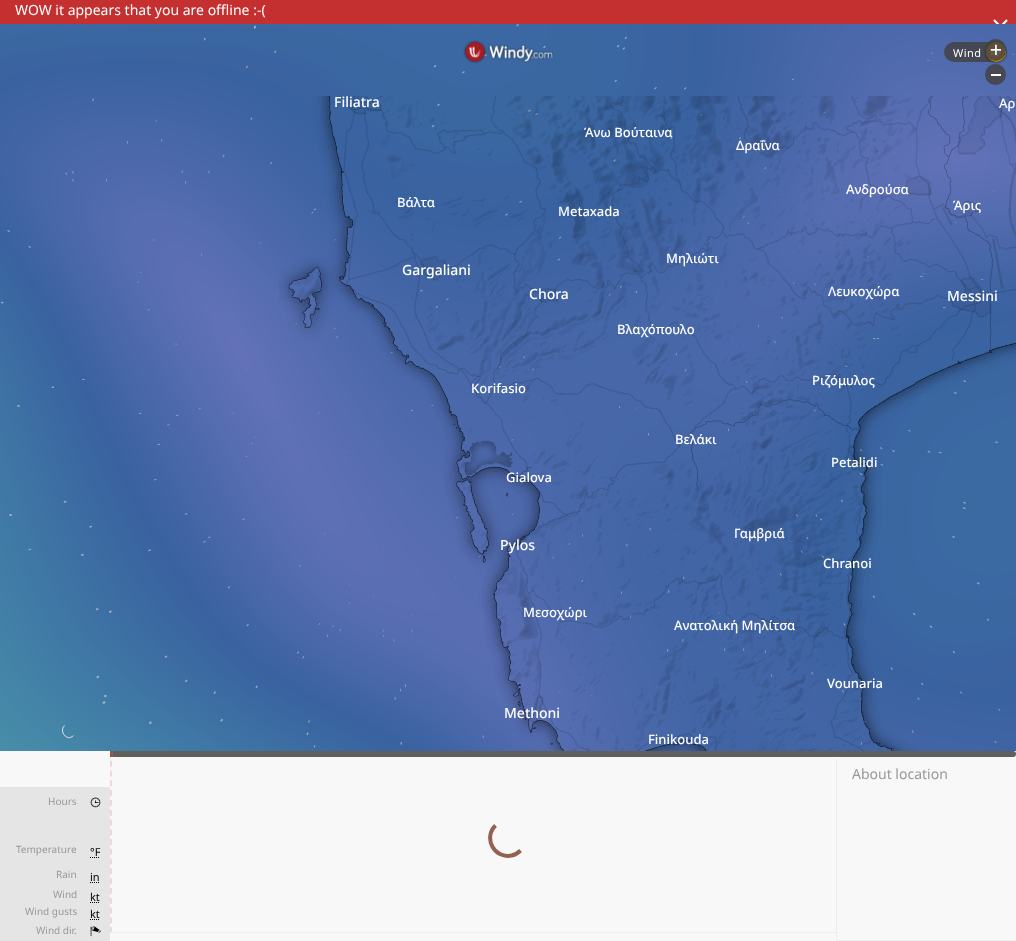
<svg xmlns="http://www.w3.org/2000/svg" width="1016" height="941">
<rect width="100%" height="100%" fill="#fff"/>
<rect width="1016" height="24" fill="#c42f2f"/>
<text x="15" y="15" style="font-family:Noto Sans;font-size:14px;fill:#fff">WOW it appears that you are offline :-(</text>
<image x="993" y="19" width="15" height="5" href="media/1.png"/>
<image x="409" y="24" width="256" height="72" href="media/8.png"/>
<image x="0" y="24" width="153" height="72" href="media/6.png"/>
<image x="153" y="24" width="256" height="72" href="media/7.png"/>
<image x="665" y="24" width="256" height="72" href="media/9.png"/>
<image x="921" y="24" width="95" height="72" href="media/10.png"/>
<image x="0" y="96" width="153" height="256" href="media/11.png"/>
<image x="153" y="96" width="256" height="256" href="media/12.png"/>
<image x="409" y="96" width="256" height="256" href="media/13.png"/>
<image x="665" y="96" width="256" height="256" href="media/14.png"/>
<image x="921" y="96" width="95" height="256" href="media/15.png"/>
<image x="0" y="352" width="153" height="256" href="media/16.png"/>
<image x="153" y="352" width="256" height="256" href="media/17.png"/>
<image x="409" y="352" width="256" height="256" href="media/18.png"/>
<image x="665" y="352" width="256" height="256" href="media/19.png"/>
<image x="921" y="352" width="95" height="256" href="media/20.png"/>
<image x="0" y="608" width="153" height="143" href="media/21.png"/>
<image x="153" y="608" width="256" height="143" href="media/22.png"/>
<image x="409" y="608" width="256" height="143" href="media/23.png"/>
<image x="665" y="608" width="256" height="143" href="media/24.png"/>
<image x="921" y="608" width="95" height="143" href="media/25.png"/>
<image x="1" y="24" width="1014" height="724" href="media/26.png"/>
<image x="463" y="40" width="24" height="24" href="media/2.png"/>
<image x="488" y="44" width="66" height="19" href="media/3.png"/>
<rect x="944" y="42" width="62" height="20" rx="10" fill="#444141d6"/>
<text x="953" y="57" style="font-family:Noto Sans;font-size:11px;letter-spacing:0.5px;fill:#fff">Wind</text>
<rect x="986" y="42" width="20" height="20" rx="10" fill="#000" filter="blur(1px)"/>
<circle cx="996" cy="52" r="10" fill="#d49500"/>
<image x="990" y="50" width="11" height="7" href="media/4.png"/>
<rect x="985" y="39" width="21" height="22" rx="10.5" fill="#444141d6"/>
<image x="990" y="44" width="12" height="11" href="media/5.png"/>
<circle cx="995.5" cy="74.5" r="10.5" fill="#444141d6"/>
<rect x="991" y="74" width="10" height="2" fill="#fff"/>
<image x="279" y="96" width="130" height="256" href="media/27.png"/>
<image x="409" y="96" width="256" height="256" href="media/28.png"/>
<image x="665" y="96" width="256" height="256" href="media/29.png"/>
<image x="921" y="96" width="95" height="256" href="media/30.png"/>
<image x="385" y="352" width="24" height="24" href="media/31.png"/>
<image x="409" y="352" width="256" height="256" href="media/32.png"/>
<image x="665" y="352" width="256" height="256" href="media/33.png"/>
<image x="921" y="352" width="95" height="42" href="media/34.png"/>
<image x="484" y="608" width="181" height="143" href="media/35.png"/>
<image x="665" y="608" width="252" height="143" href="media/36.png"/>
<text x="334" y="107" style="font-family:Noto Sans;font-size:14px;font-weight:500;fill:#fff">Filiatra</text>
<text x="584" y="137" style="font-family:Noto Sans;font-size:13px;font-weight:500;fill:#fff">Άνω Βούταινα</text>
<text x="397" y="207" style="font-family:Noto Sans;font-size:13px;font-weight:500;fill:#fff">Βάλτα</text>
<text x="558" y="216" style="font-family:Noto Sans;font-size:13px;font-weight:500;fill:#fff">Metaxada</text>
<text x="402" y="275" style="font-family:Noto Sans;font-size:14px;font-weight:500;fill:#fff">Gargaliani</text>
<text x="529" y="299" style="font-family:Noto Sans;font-size:14px;font-weight:500;fill:#fff">Chora</text>
<text x="617" y="334" style="font-family:Noto Sans;font-size:13px;font-weight:500;fill:#fff">Βλαχόπουλο</text>
<text x="736" y="150" style="font-family:Noto Sans;font-size:13px;font-weight:500;fill:#fff">Δραΐνα</text>
<text x="846" y="194" style="font-family:Noto Sans;font-size:13px;font-weight:500;fill:#fff">Ανδρούσα</text>
<text x="666" y="263" style="font-family:Noto Sans;font-size:13px;font-weight:500;fill:#fff">Μηλιώτι</text>
<text x="828" y="296" style="font-family:Noto Sans;font-size:13px;font-weight:500;fill:#fff">Λευκοχώρα</text>
<text x="999" y="108" style="font-family:Noto Sans;font-size:13px;font-weight:500;fill:#fff">Αρ</text>
<text x="953" y="210" style="font-family:Noto Sans;font-size:13px;font-weight:500;fill:#fff">Άρις</text>
<text x="947" y="301" style="font-family:Noto Sans;font-size:14px;font-weight:500;fill:#fff">Messini</text>
<text x="471" y="393" style="font-family:Noto Sans;font-size:13px;font-weight:500;fill:#fff">Korifasio</text>
<text x="506" y="482" style="font-family:Noto Sans;font-size:13px;font-weight:500;fill:#fff">Gialova</text>
<text x="500" y="550" style="font-family:Noto Sans;font-size:14px;font-weight:500;fill:#fff">Pylos</text>
<text x="812" y="385" style="font-family:Noto Sans;font-size:13px;font-weight:500;fill:#fff">Ριζόμυλος</text>
<text x="675" y="444" style="font-family:Noto Sans;font-size:13px;font-weight:500;fill:#fff">Βελάκι</text>
<text x="831" y="467" style="font-family:Noto Sans;font-size:13px;font-weight:500;fill:#fff">Petalidi</text>
<text x="734" y="538" style="font-family:Noto Sans;font-size:13px;font-weight:500;fill:#fff">Γαμβριά</text>
<text x="823" y="568" style="font-family:Noto Sans;font-size:13px;font-weight:500;fill:#fff">Chranoi</text>
<text x="523" y="617" style="font-family:Noto Sans;font-size:13px;font-weight:500;fill:#fff">Μεσοχώρι</text>
<text x="504" y="718" style="font-family:Noto Sans;font-size:14px;font-weight:500;fill:#fff">Methoni</text>
<text x="674" y="630" style="font-family:Noto Sans;font-size:13px;font-weight:500;fill:#fff">Ανατολική Μηλίτσα</text>
<text x="827" y="688" style="font-family:Noto Sans;font-size:13px;font-weight:500;fill:#fff">Vounaria</text>
<text x="648" y="744" style="font-family:Noto Sans;font-size:13px;font-weight:500;fill:#fff">Finikouda</text>
<path d="M73.5 735.5c-6 6.5-15-3.5-9-10" fill="none" stroke="#e5e5e5"/>
<rect y="751" width="1016" height="190" fill="#f8f8f8"/>
<rect x="110" y="751" width="906" height="6" rx="3" fill="#615e5e"/>
<rect x="110" y="751" width="3" height="6" fill="#946051"/>
<path d="M111 751v182" fill="none" stroke="#9d03001f" stroke-width="2" stroke-dasharray="6 3.78"/>
<rect x="836" y="940" width="180" height="1" fill="#ededed"/>
<rect x="836" y="759" width="1" height="182" fill="#ededed"/>
<rect x="110" y="932" width="727" height="1" fill="#ededed"/>
<text x="852" y="779" style="font-family:Noto Sans;font-size:14px;fill:#999">About location</text>
<rect y="787" width="110" height="154" fill="#e5e5e5"/>
<text x="48" y="805" style="font-family:Noto Sans;font-size:10px;fill:#999">Hours</text>
<image x="90" y="797" width="11" height="11" href="media/37.png"/>
<text x="16" y="853" style="font-family:Noto Sans;font-size:10px;fill:#999">Temperature</text>
<text x="90" y="856" style="font-family:Noto Sans;font-size:11px;fill:#000">°F</text>
<path d="M90 857.5h10" fill="none" stroke="#000" stroke-dasharray="1 1"/>
<text x="56" y="878" style="font-family:Noto Sans;font-size:10px;fill:#999">Rain</text>
<text x="90" y="881" style="font-family:Noto Sans;font-size:11px;fill:#000">in</text>
<path d="M90 882.5h10" fill="none" stroke="#000" stroke-dasharray="1 1"/>
<text x="53" y="898" style="font-family:Noto Sans;font-size:10px;fill:#999">Wind</text>
<text x="90" y="901" style="font-family:Noto Sans;font-size:11px;fill:#000">kt</text>
<path d="M90 902.5h10" fill="none" stroke="#000" stroke-dasharray="1 1"/>
<text x="25" y="915" style="font-family:Noto Sans;font-size:10px;fill:#999">Wind gusts</text>
<text x="90" y="918" style="font-family:Noto Sans;font-size:11px;fill:#000">kt</text>
<path d="M90 919.5h10" fill="none" stroke="#000" stroke-dasharray="1 1"/>
<text x="36" y="934" style="font-family:Noto Sans;font-size:10px;fill:#999">Wind dir.</text>
<image x="90" y="926" width="11" height="11" href="media/38.png"/>
<path d="M520.5 850.5c-2.5 2.5-5.5 4.5-9 5c-17.5 3.5-28.5-18-16-30" fill="none" stroke="#946051" stroke-width="4"/>
</svg>
